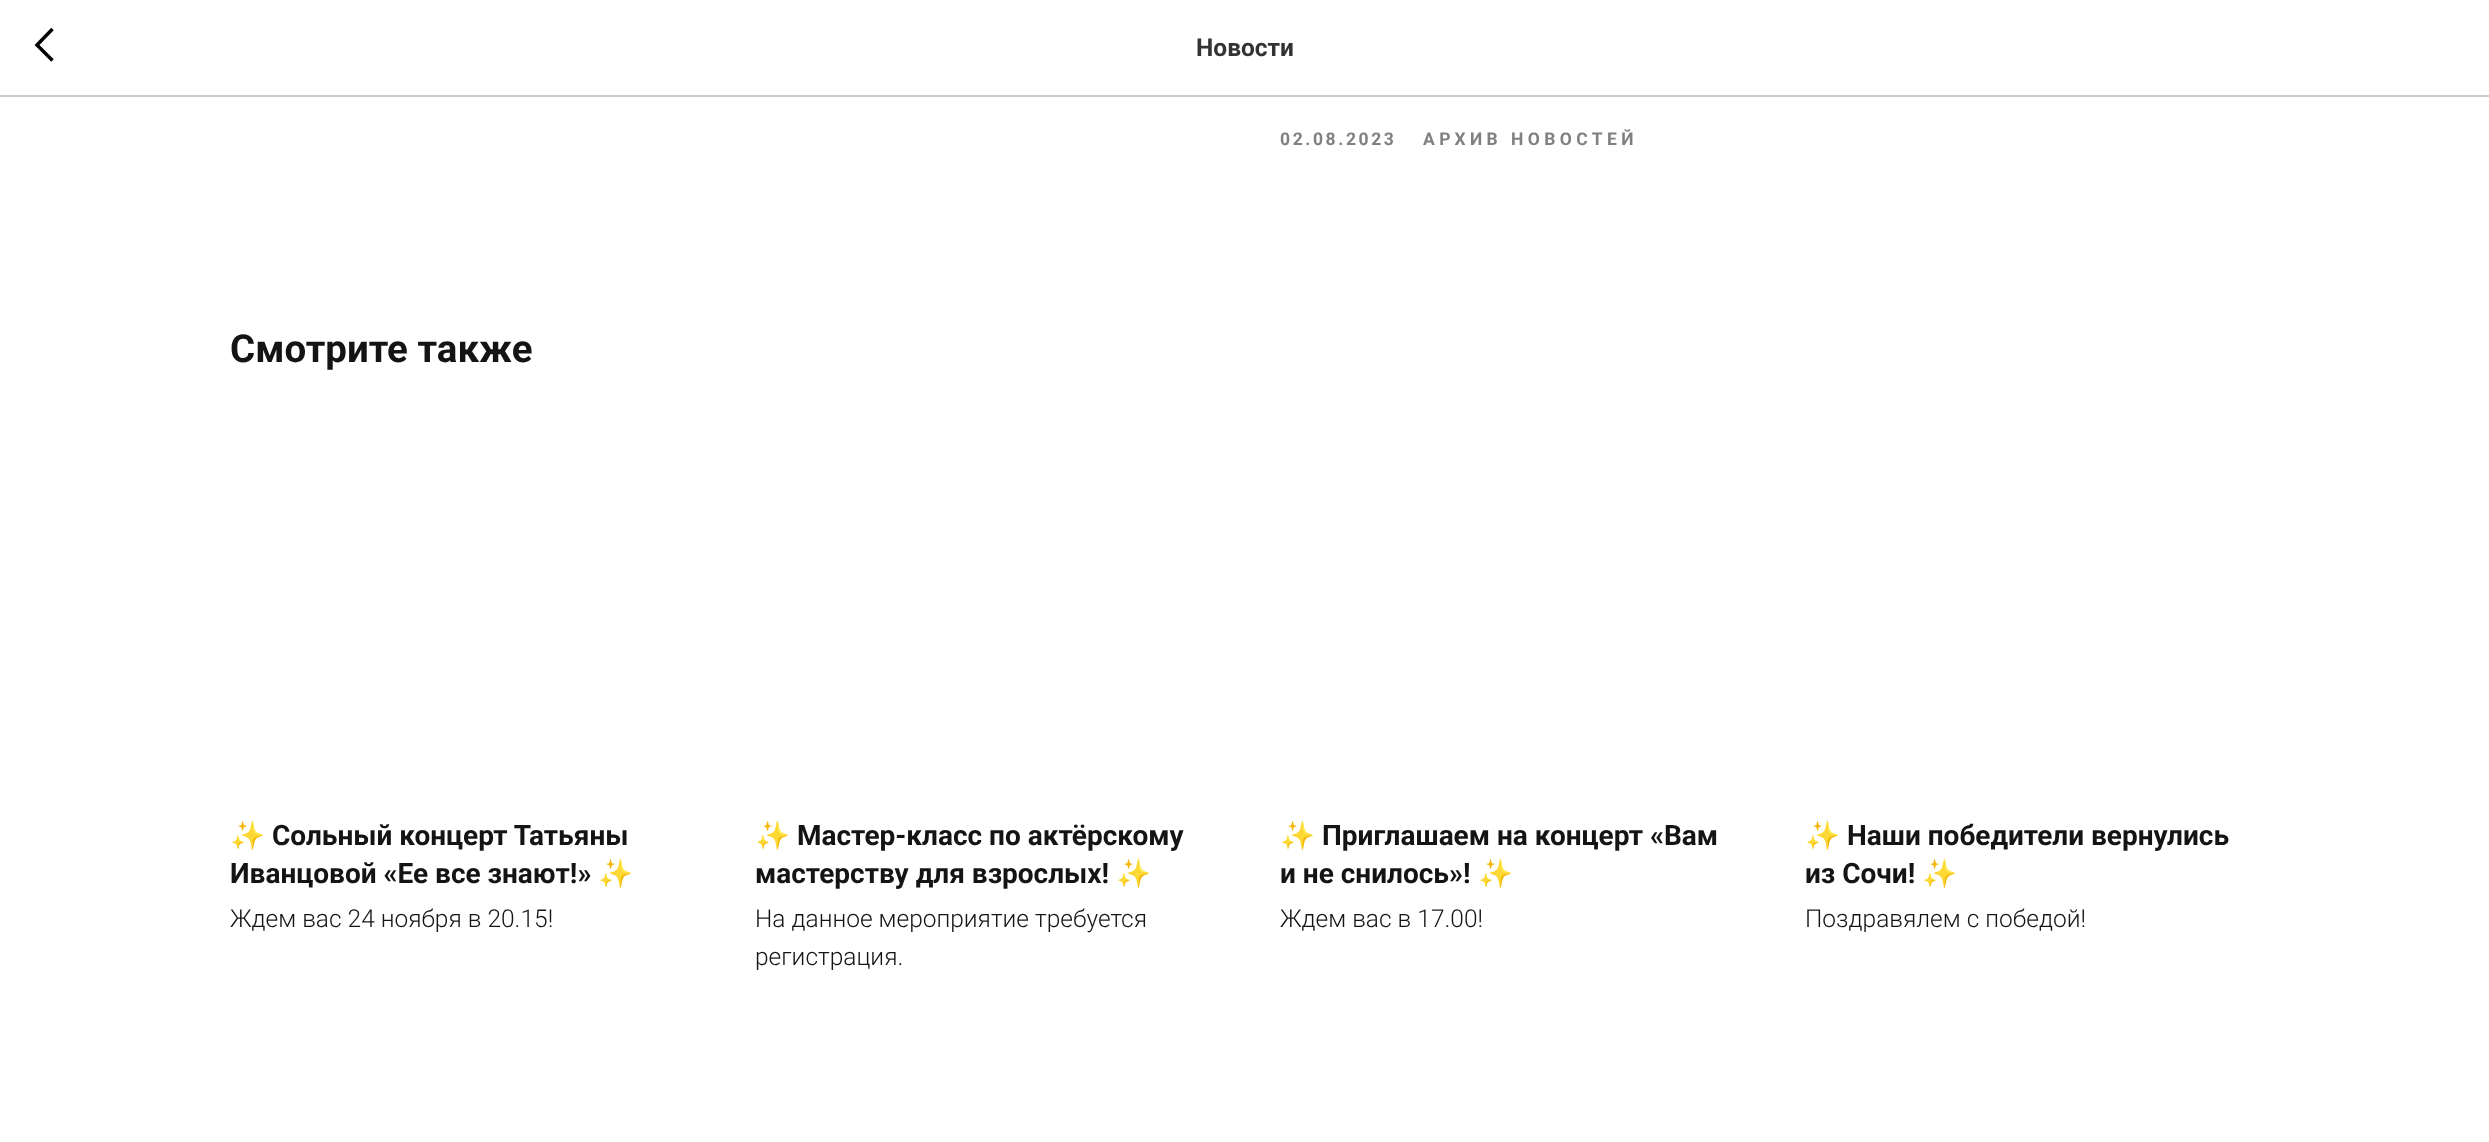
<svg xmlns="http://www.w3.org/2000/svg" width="2489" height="1142">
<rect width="100%" height="100%" fill="#fff"/>
<rect y="95" width="2489" height="2" fill="#ccc"/>
<path d="M52.5 60.5l-15.5-15.5l15.5-16" fill="none" stroke="#000" stroke-width="3.5"/>
<text x="1196" y="56" style="font-family:Roboto;font-size:24.5px;font-weight:bold;fill:#333">Новости</text>
<text x="1280" y="145" style="font-family:Roboto;font-size:17.5px;font-weight:bold;letter-spacing:2.6px;fill:#808080">02.08.2023</text>
<text x="1423" y="145" style="font-family:Roboto;font-size:17.5px;font-weight:bold;letter-spacing:4.4px;fill:#808080">АРХИВ НОВОСТЕЙ</text>
<text x="230" y="362" style="font-family:Roboto;font-size:38.5px;font-weight:bold;fill:#141414">Смотрите также</text>
<text x="230" y="845" style="font-family:Noto Color Emoji;font-size:28px;font-weight:bold;fill:#141414">✨</text>
<text x="272" y="845" style="font-family:Roboto;font-size:28px;font-weight:bold;fill:#141414">Сольный концерт Татьяны</text>
<text x="230" y="883" style="font-family:Roboto;font-size:28px;font-weight:bold;fill:#141414">Иванцовой «Ее все знают!»</text>
<text x="598" y="883" style="font-family:Noto Color Emoji;font-size:28px;font-weight:bold;fill:#141414">✨</text>
<text x="230" y="927" style="font-family:Roboto;font-size:24.5px;font-weight:300;fill:#141414">Ждем вас 24 ноября в 20.15!</text>
<text x="755" y="845" style="font-family:Noto Color Emoji;font-size:28px;font-weight:bold;fill:#141414">✨</text>
<text x="797" y="845" style="font-family:Roboto;font-size:28px;font-weight:bold;fill:#141414">Мастер-класс по актёрскому</text>
<text x="755" y="883" style="font-family:Roboto;font-size:28px;font-weight:bold;fill:#141414">мастерству для взрослых!</text>
<text x="1116" y="883" style="font-family:Noto Color Emoji;font-size:28px;font-weight:bold;fill:#141414">✨</text>
<text x="755" y="927" style="font-family:Roboto;font-size:24.5px;font-weight:300;fill:#141414">На данное мероприятие требуется</text>
<text x="755" y="965" style="font-family:Roboto;font-size:24.5px;font-weight:300;fill:#141414">регистрация.</text>
<text x="1280" y="845" style="font-family:Noto Color Emoji;font-size:28px;font-weight:bold;fill:#141414">✨</text>
<text x="1322" y="845" style="font-family:Roboto;font-size:28px;font-weight:bold;fill:#141414">Приглашаем на концерт «Вам</text>
<text x="1280" y="883" style="font-family:Roboto;font-size:28px;font-weight:bold;fill:#141414">и не снилось»!</text>
<text x="1478" y="883" style="font-family:Noto Color Emoji;font-size:28px;font-weight:bold;fill:#141414">✨</text>
<text x="1280" y="927" style="font-family:Roboto;font-size:24.5px;font-weight:300;fill:#141414">Ждем вас в 17.00!</text>
<text x="1805" y="845" style="font-family:Noto Color Emoji;font-size:28px;font-weight:bold;fill:#141414">✨</text>
<text x="1847" y="845" style="font-family:Roboto;font-size:28px;font-weight:bold;fill:#141414">Наши победители вернулись</text>
<text x="1805" y="883" style="font-family:Roboto;font-size:28px;font-weight:bold;fill:#141414">из Сочи!</text>
<text x="1922" y="883" style="font-family:Noto Color Emoji;font-size:28px;font-weight:bold;fill:#141414">✨</text>
<text x="1805" y="927" style="font-family:Roboto;font-size:24.5px;font-weight:300;fill:#141414">Поздравялем с победой!</text>
</svg>
